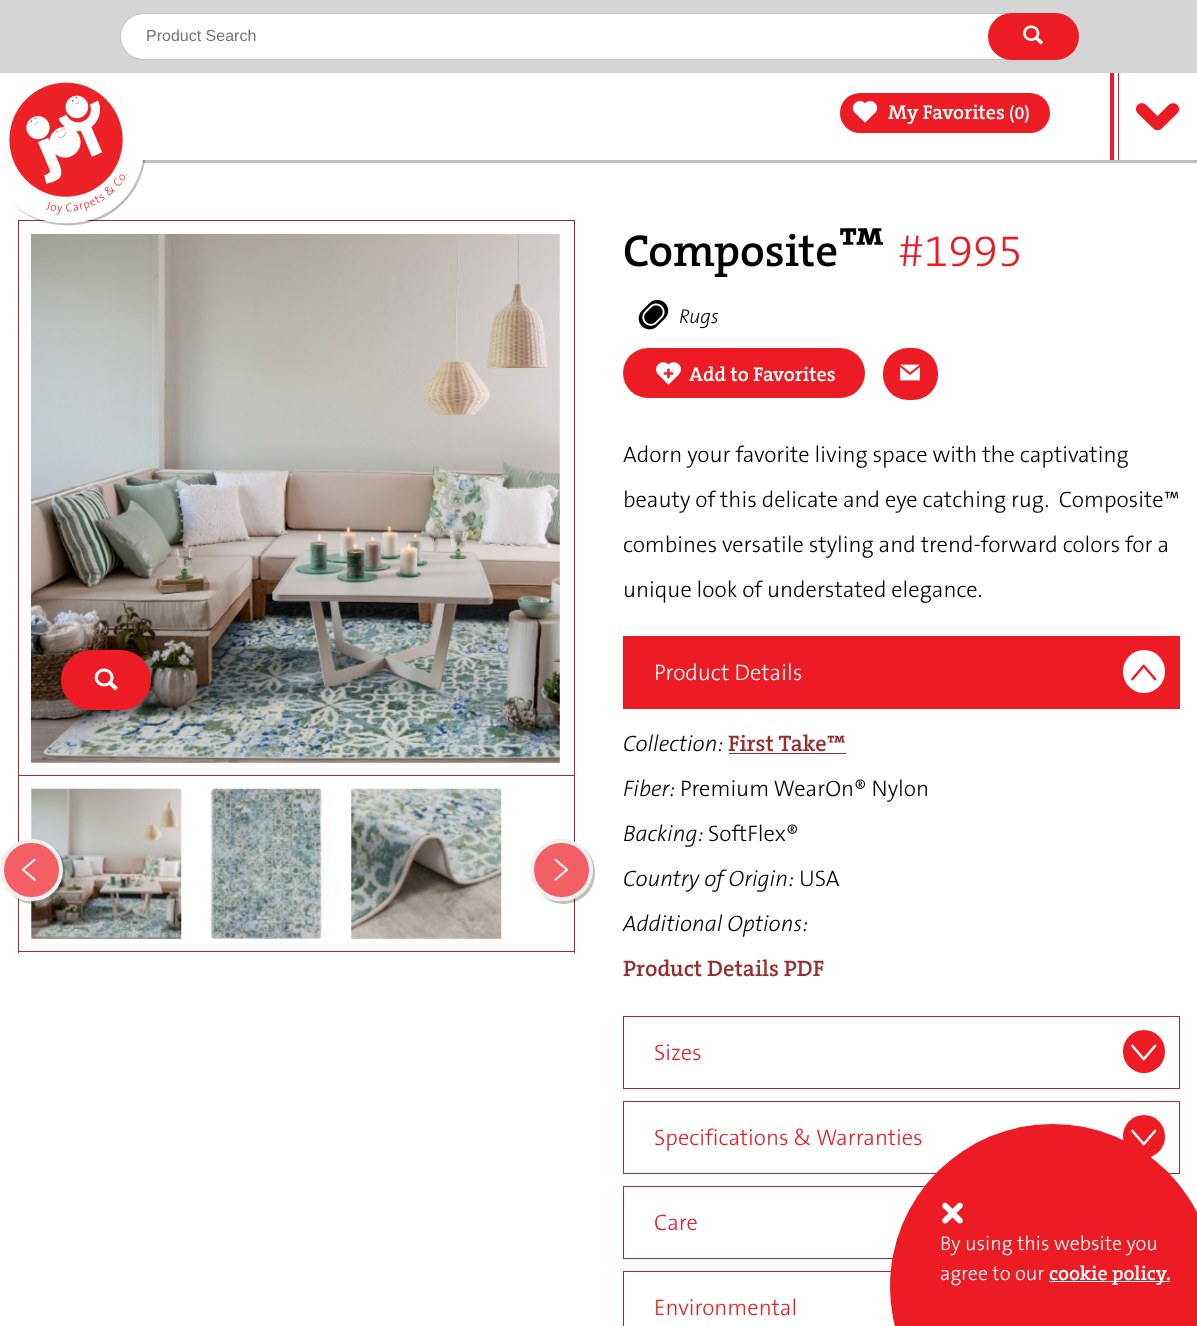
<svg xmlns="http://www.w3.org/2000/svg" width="1197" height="1326">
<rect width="100%" height="100%" fill="#fff"/>
<path d="M3 160v3h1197v-160h-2v157z" fill="#bfbfbf"/>
<rect width="1197" height="73" fill="#d5d5d5"/>
<rect x="120.5" y="13.5" width="957" height="46" rx="23" fill="#fff" stroke="#c0c0c0"/>
<text x="146" y="41" style="font-family:Liberation Sans;font-size:16px;fill:#757575">Product Search</text>
<rect x="988" y="13" width="91" height="47" rx="23.5" fill="#ed1c24"/>
<image x="1023" y="25" width="20" height="20" href="media/1.png"/>
<rect x="18.5" y="220.5" width="556" height="555" fill="none" stroke="#992e30"/>
<path d="M11 202c25 27 71 31 102 10c38-26 44-80 13-113c28 33 22 86-15 111c-30 20-74 17-100-8z" fill="#00000040"/>
<rect x="-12" y="73" width="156" height="150" rx="75" fill="#fff"/>
<rect x="127" y="100" width="19" height="60" fill="#fff"/>
<image x="9" y="82" width="119" height="133" href="media/2.png"/>
<rect x="840" y="93" width="210" height="40" rx="20" fill="#ed1c24"/>
<image x="852" y="101" width="26" height="22" href="media/3.png"/>
<text x="888" y="119" style="font-family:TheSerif;font-size:20px;font-weight:600;fill:#fff">My Favorites</text>
<text x="1009" y="119" style="font-family:TheSerif;font-size:18px;font-weight:600;fill:#fff">(0)</text>
<rect x="1110" y="73" width="4" height="87" fill="#ed1c24"/>
<rect x="1118" y="73" width="1" height="87" fill="#ed1c24"/>
<image x="1136" y="103" width="44" height="28" href="media/4.png"/>
<image x="31" y="234" width="530" height="529" href="media/5.png"/>
<rect x="61" y="650" width="90" height="60" rx="30" fill="#ed1c24"/>
<image x="94" y="668" width="24" height="23" href="media/6.png"/>
<image x="560" y="234" width="1" height="529" href="media/7.png"/>
<rect x="574" y="776" width="1" height="177" fill="#992e30"/>
<rect x="18" y="951" width="557" height="1" fill="#992e30"/>
<rect x="18" y="776" width="1" height="177" fill="#992e30"/>
<image x="31" y="788" width="151" height="151" href="media/8.png"/>
<image x="210" y="788" width="121" height="151" href="media/9.png"/>
<image x="351" y="788" width="151" height="151" href="media/10.png"/>
<path d="M11 894c12 13 32 13 45 1c13-13 12-36-3-48c12 12 13 33 0 45c-11 12-30 12-42 2z" fill="#00000040"/>
<rect x="2" y="841" width="59" height="58" rx="29" fill="#f26066" stroke="#f0f0f0" stroke-width="4"/>
<image x="21" y="858" width="15" height="23" href="media/11.png"/>
<path d="M541 894c12 13 32 13 45 1c13-13 12-36-3-48c12 12 13 33 0 45c-11 12-30 12-42 2z" fill="#00000040"/>
<rect x="532" y="841" width="59" height="58" rx="29" fill="#f26066" stroke="#f0f0f0" stroke-width="4"/>
<image x="554" y="858" width="15" height="23" href="media/12.png"/>
<text x="623" y="266" style="font-family:TheSerif;font-size:45px;font-weight:600;fill:#000">Composite</text>
<text x="838" y="266" style="font-family:TheSerif;font-size:56px;font-weight:600;fill:#000">™</text>
<text x="898" y="266" style="font-family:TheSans;font-size:45px;font-weight:300;fill:#ed1c24">#1995</text>
<image x="638" y="299" width="31" height="31" href="media/13.png"/>
<text x="679" y="323" style="font-family:TheSans;font-size:20px;font-weight:300;font-style:italic;fill:#000">Rugs</text>
<rect x="623" y="348" width="242" height="50" rx="25" fill="#ed1c24"/>
<image x="656" y="362" width="25" height="23" href="media/14.png"/>
<text x="689" y="381" style="font-family:TheSerif;font-size:20px;font-weight:600;fill:#fff">Add to Favorites</text>
<rect x="883" y="348" width="55" height="52" rx="25" fill="#ed1c24"/>
<image x="900" y="364" width="20" height="17" href="media/15.png"/>
<text x="623" y="462" style="font-family:TheSans;font-size:22.5px;font-weight:300;fill:#000">Adorn your favorite living space with the captivating</text>
<text x="623" y="507" style="font-family:TheSans;font-size:22.5px;font-weight:300;fill:#000" xml:space="preserve">beauty of this delicate and eye catching rug.  Composite™</text>
<text x="623" y="552" style="font-family:TheSans;font-size:22.5px;font-weight:300;fill:#000">combines versatile styling and trend-forward colors for a</text>
<text x="623" y="597" style="font-family:TheSans;font-size:22.5px;font-weight:300;fill:#000">unique look of understated elegance.</text>
<rect x="623" y="636" width="557" height="73" fill="#ed1c24"/>
<text x="654" y="680" style="font-family:TheSans;font-size:22.5px;font-weight:300;fill:#fff">Product Details</text>
<rect x="1123" y="650" width="42" height="43" rx="21" fill="#fff"/>
<image x="1131" y="664" width="26" height="17" href="media/16.png"/>
<text x="623" y="751" style="font-family:TheSans;font-size:22.5px;font-weight:300;font-style:italic;fill:#000">Collection:</text>
<text x="728" y="751" style="font-family:TheSerif;font-size:22.5px;font-weight:600;fill:#992e30">First Take™</text>
<rect x="729" y="753" width="117" height="1" fill="#992e30"/>
<text x="623" y="796" style="font-family:TheSans;font-size:22.5px;font-weight:300;font-style:italic;fill:#000">Fiber:</text>
<text x="680" y="796" style="font-family:TheSans;font-size:22.5px;font-weight:300;fill:#000">Premium WearOn® Nylon</text>
<text x="623" y="841" style="font-family:TheSans;font-size:22.5px;font-weight:300;font-style:italic;fill:#000">Backing:</text>
<text x="708" y="841" style="font-family:TheSans;font-size:22.5px;font-weight:300;fill:#000">SoftFlex®</text>
<text x="623" y="886" style="font-family:TheSans;font-size:22.5px;font-weight:300;font-style:italic;fill:#000">Country of Origin:</text>
<text x="799" y="886" style="font-family:TheSans;font-size:22.5px;font-weight:300;fill:#000">USA</text>
<text x="623" y="931" style="font-family:TheSans;font-size:22.5px;font-weight:300;font-style:italic;fill:#000">Additional Options:</text>
<text x="623" y="976" style="font-family:TheSerif;font-size:22.5px;font-weight:600;fill:#992e30">Product Details PDF</text>
<rect x="623.5" y="1016.5" width="556" height="72" fill="none" stroke="#992e30"/>
<text x="654" y="1060" style="font-family:TheSans;font-size:22.5px;font-weight:300;fill:#ed1c24">Sizes</text>
<rect x="1123" y="1030" width="42" height="43" rx="21" fill="#ed1c24"/>
<image x="1131" y="1044" width="26" height="17" href="media/17.png"/>
<rect x="623.5" y="1101.5" width="556" height="72" fill="none" stroke="#992e30"/>
<text x="654" y="1145" style="font-family:TheSans;font-size:22.5px;font-weight:300;fill:#ed1c24">Specifications &amp; Warranties</text>
<rect x="1123" y="1115" width="42" height="43" rx="21" fill="#ed1c24"/>
<image x="1131" y="1129" width="26" height="17" href="media/17.png"/>
<rect x="623.5" y="1186.5" width="556" height="72" fill="none" stroke="#992e30"/>
<text x="654" y="1230" style="font-family:TheSans;font-size:22.5px;font-weight:300;fill:#ed1c24">Care</text>
<rect x="623.5" y="1271.5" width="556" height="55" fill="none" stroke="#992e30"/>
<text x="654" y="1315" style="font-family:TheSans;font-size:22.5px;font-weight:300;fill:#ed1c24">Environmental</text>
<circle cx="1052.5" cy="1286.5" r="162.5" fill="#ed1c24"/>
<image x="942" y="1202" width="21" height="22" href="media/18.png"/>
<text x="940" y="1250" style="font-family:TheSans;font-size:20px;font-weight:300;fill:#fff">By using this website you</text>
<text x="940" y="1280" style="font-family:TheSans;font-size:20px;font-weight:300;fill:#fff">agree to our</text>
<rect x="1049" y="1281" width="121" height="1" fill="#fff"/>
<text x="1049" y="1280" style="font-family:TheSerif;font-size:20px;font-weight:600;fill:#fff">cookie policy.</text>
</svg>
